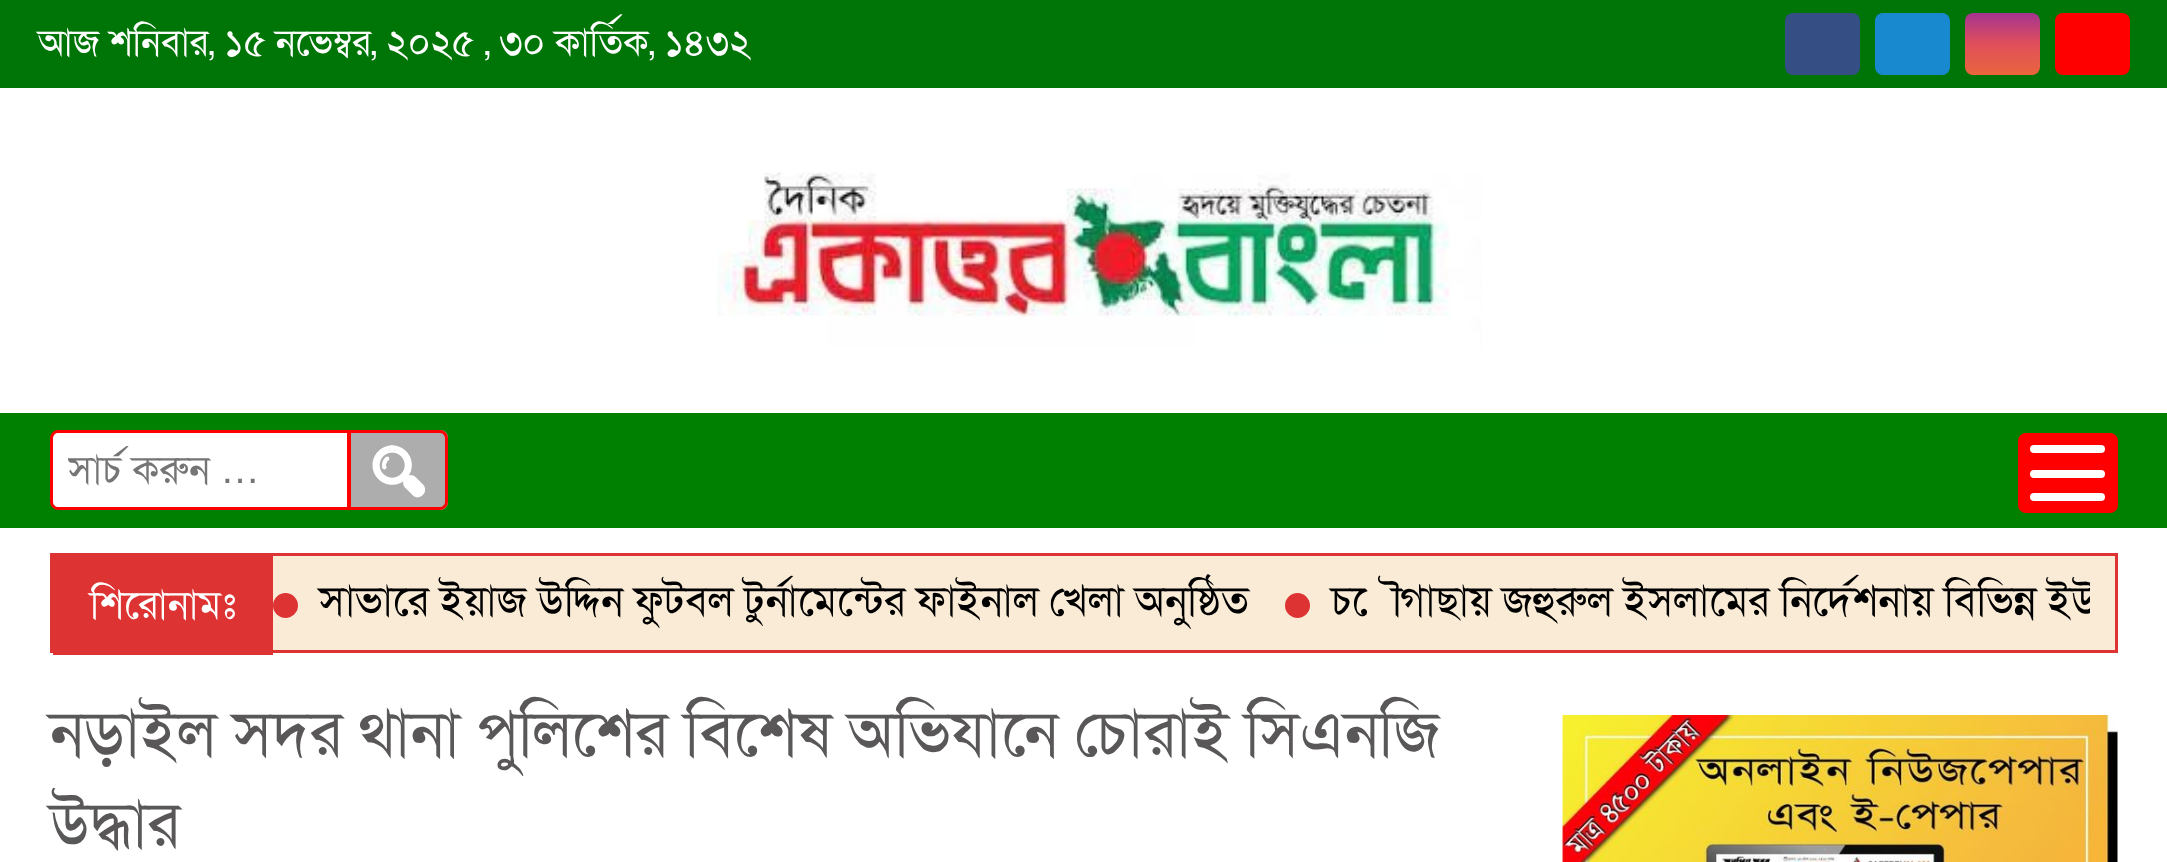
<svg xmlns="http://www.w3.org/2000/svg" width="2167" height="862">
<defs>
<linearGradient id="g1" gradientUnits="userSpaceOnUse" x1="2003" y1="12" x2="2003" y2="75"><stop offset="0" stop-color="#a33392"/><stop offset="0.5" stop-color="#e04e5c"/><stop offset="1" stop-color="#e9663c"/></linearGradient>
<clipPath id="clip1"><rect x="68" y="443" width="255" height="55"/></clipPath>
<clipPath id="clip2"><rect x="273" y="555" width="1817" height="95"/></clipPath>
</defs>
<rect width="100%" height="100%" fill="#fff"/>
<rect width="2167" height="88" fill="#007507"/>
<text x="38" y="55" style="font-family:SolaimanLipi;font-size:37.5px;fill:#fff">আজ শনিবার, ১৫ নভেম্বর, ২০২৫ , ৩০ কার্তিক, ১৪৩২</text>
<rect x="1785" y="13" width="75" height="62" rx="8" fill="#354e83"/>
<rect x="1875" y="13" width="75" height="62" rx="8" fill="#1889cf"/>
<rect x="1965" y="13" width="75" height="62" rx="8" fill="url(#g1)"/>
<rect x="2055" y="13" width="75" height="62" rx="8" fill="#f00"/>
<image x="717" y="172" width="765" height="175" href="media/1.png"/>
<rect y="413" width="2167" height="115" fill="#008000"/>
<path d="M58 431.5h290.5v77h-290.5c-3.5 0-6.5-3-6.5-6.5v-64c0-3.5 3-6.5 6.5-6.5z" fill="#fff" stroke="#f00" stroke-width="3"/>
<g clip-path="url(#clip1)">
<text x="68" y="483" style="font-family:SolaimanLipi;font-size:40px;fill:#757575">সার্চ করুন</text>
</g>
<text x="220" y="483" style="font-family:Liberation Sans;font-size:40px;fill:#757575">…</text>
<path d="M348 430h92c4.5 0 8 3.5 8 8v64c0 4.5-3.5 8-8 8h-92z" fill="#aeadad"/>
<image x="372" y="445" width="53" height="53" href="media/2.png"/>
<path d="M349.5 431.5h90.5c3.5 0 6.5 3 6.5 6.5v64c0 3.5-3 6.5-6.5 6.5h-90.5z" fill="none" stroke="#f00" stroke-width="3"/>
<rect x="2018" y="433" width="100" height="80" rx="8" fill="#f00"/>
<rect x="2030" y="445" width="75" height="8" rx="4" fill="#fff"/>
<rect x="2030" y="470" width="75" height="8" rx="4" fill="#fff"/>
<rect x="2030" y="493" width="75" height="8" rx="4" fill="#fff"/>
<rect x="273" y="556" width="1842" height="94" fill="#faebd7"/>
<rect x="51.5" y="554.5" width="2065" height="97" fill="none" stroke="#d33" stroke-width="3"/>
<rect x="53" y="556" width="220" height="99" fill="#d33"/>
<text x="90" y="618" style="font-family:SolaimanLipi;font-size:40px;fill:#fff">শিরোনামঃ</text>
<circle cx="285.5" cy="605.5" r="12.5" fill="#d33"/>
<text x="319" y="615" style="font-family:SolaimanLipi;font-size:42.5px;fill:#000">সাভারে ইয়াজ উদ্দিন ফুটবল টুর্নামেন্টের ফাইনাল খেলা অনুষ্ঠিত</text>
<circle cx="1297.5" cy="605.5" r="12.5" fill="#d33"/>
<g clip-path="url(#clip2)">
<text x="1331" y="615" style="font-family:SolaimanLipi;font-size:42.5px;fill:#000">চৌগাছায় জহুরুল ইসলামের নির্দেশনায় বিভিন্ন ইউন</text>
</g>
<text x="50" y="755" style="font-family:SolaimanLipi;font-size:65px;fill:#595757">নড়াইল সদর থানা পুলিশের বিশেষ অভিযানে চোরাই সিএনজি</text>
<text x="50" y="846" style="font-family:SolaimanLipi;font-size:65px;fill:#595757">উদ্ধার</text>
<image x="1562" y="715" width="556" height="147" href="media/3.png"/>
</svg>
